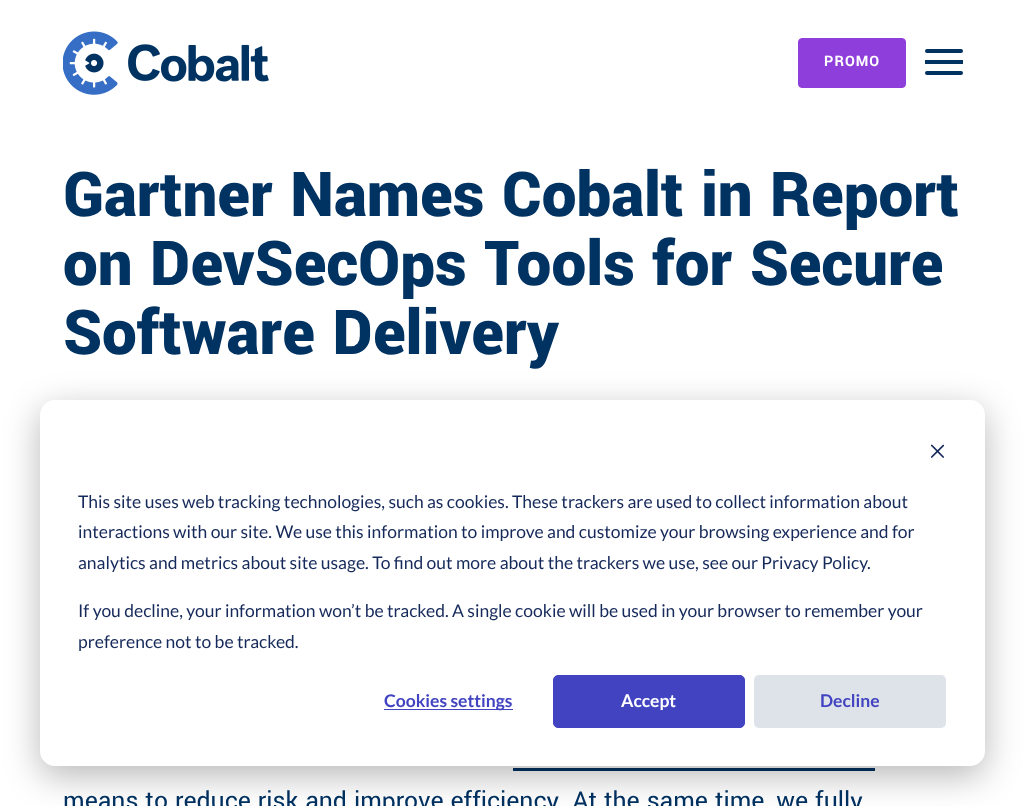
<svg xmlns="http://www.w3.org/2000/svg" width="1025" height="806">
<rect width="100%" height="100%" fill="#fff"/>
<image x="63" y="31" width="206" height="64" href="media/1.png"/>
<rect x="798.5" y="38.5" width="107" height="49" rx="3.5" fill="#8e3edb" stroke="#8e3edb"/>
<text x="824" y="66" style="font-family:Yantramanav;font-size:16px;font-weight:bold;letter-spacing:1px;fill:#fff">PROMO</text>
<rect x="925" y="60" width="38" height="4" fill="#003262"/>
<rect x="925" y="49" width="38" height="4" rx="2" fill="#003262"/>
<rect x="925" y="71" width="38" height="4" rx="2" fill="#003262"/>
<text x="63" y="216" style="font-family:Yantramanav;font-size:68.75px;font-weight:900;fill:#003262">Gartner Names Cobalt in Report</text>
<text x="63" y="285" style="font-family:Yantramanav;font-size:68.75px;font-weight:900;fill:#003262">on DevSecOps Tools for Secure</text>
<text x="63" y="354" style="font-family:Yantramanav;font-size:68.75px;font-weight:900;fill:#003262">Software Delivery</text>
<rect x="513" y="768" width="362" height="3" fill="#003262"/>
<text x="63" y="809" style="font-family:Yantramanav;font-size:27.5px;fill:#003262">means to reduce risk and improve efficiency. At the same time, we fully</text>
<rect x="40" y="410" width="945" height="366" rx="15" fill="#00000047" filter="blur(17.5px)"/>
<rect x="40" y="400" width="945" height="366" rx="15" fill="#fff"/>
<image x="930" y="444" width="15" height="14" href="media/2.png"/>
<text x="78" y="508" style="font-family:Lato;font-size:17.5px;fill:#15295a">This site uses web tracking technologies, such as cookies. These trackers are used to collect information about</text>
<text x="78" y="538" style="font-family:Lato;font-size:17.5px;fill:#15295a">interactions with our site. We use this information to improve and customize your browsing experience and for</text>
<text x="78" y="569" style="font-family:Lato;font-size:17.5px;fill:#15295a">analytics and metrics about site usage. To find out more about the trackers we use, see our Privacy Policy.</text>
<text x="78" y="617" style="font-family:Lato;font-size:17.5px;fill:#15295a">If you decline, your information won’t be tracked. A single cookie will be used in your browser to remember your</text>
<text x="78" y="648" style="font-family:Lato;font-size:17.5px;fill:#15295a">preference not to be tracked.</text>
<rect x="384" y="709" width="129" height="1" fill="#4143c1"/>
<text x="384" y="707" style="font-family:Lato;font-size:17.5px;font-weight:bold;fill:#4143c1">Cookies settings</text>
<rect x="553.5" y="675.5" width="191" height="52" rx="4.5" fill="#4143c1" stroke="#4143c1"/>
<text x="621" y="707" style="font-family:Lato;font-size:17.5px;font-weight:bold;fill:#fff">Accept</text>
<rect x="754" y="675" width="192" height="53" rx="5" fill="#dde3e9"/>
<text x="820" y="707" style="font-family:Lato;font-size:17.5px;font-weight:bold;fill:#4143c1">Decline</text>
</svg>
